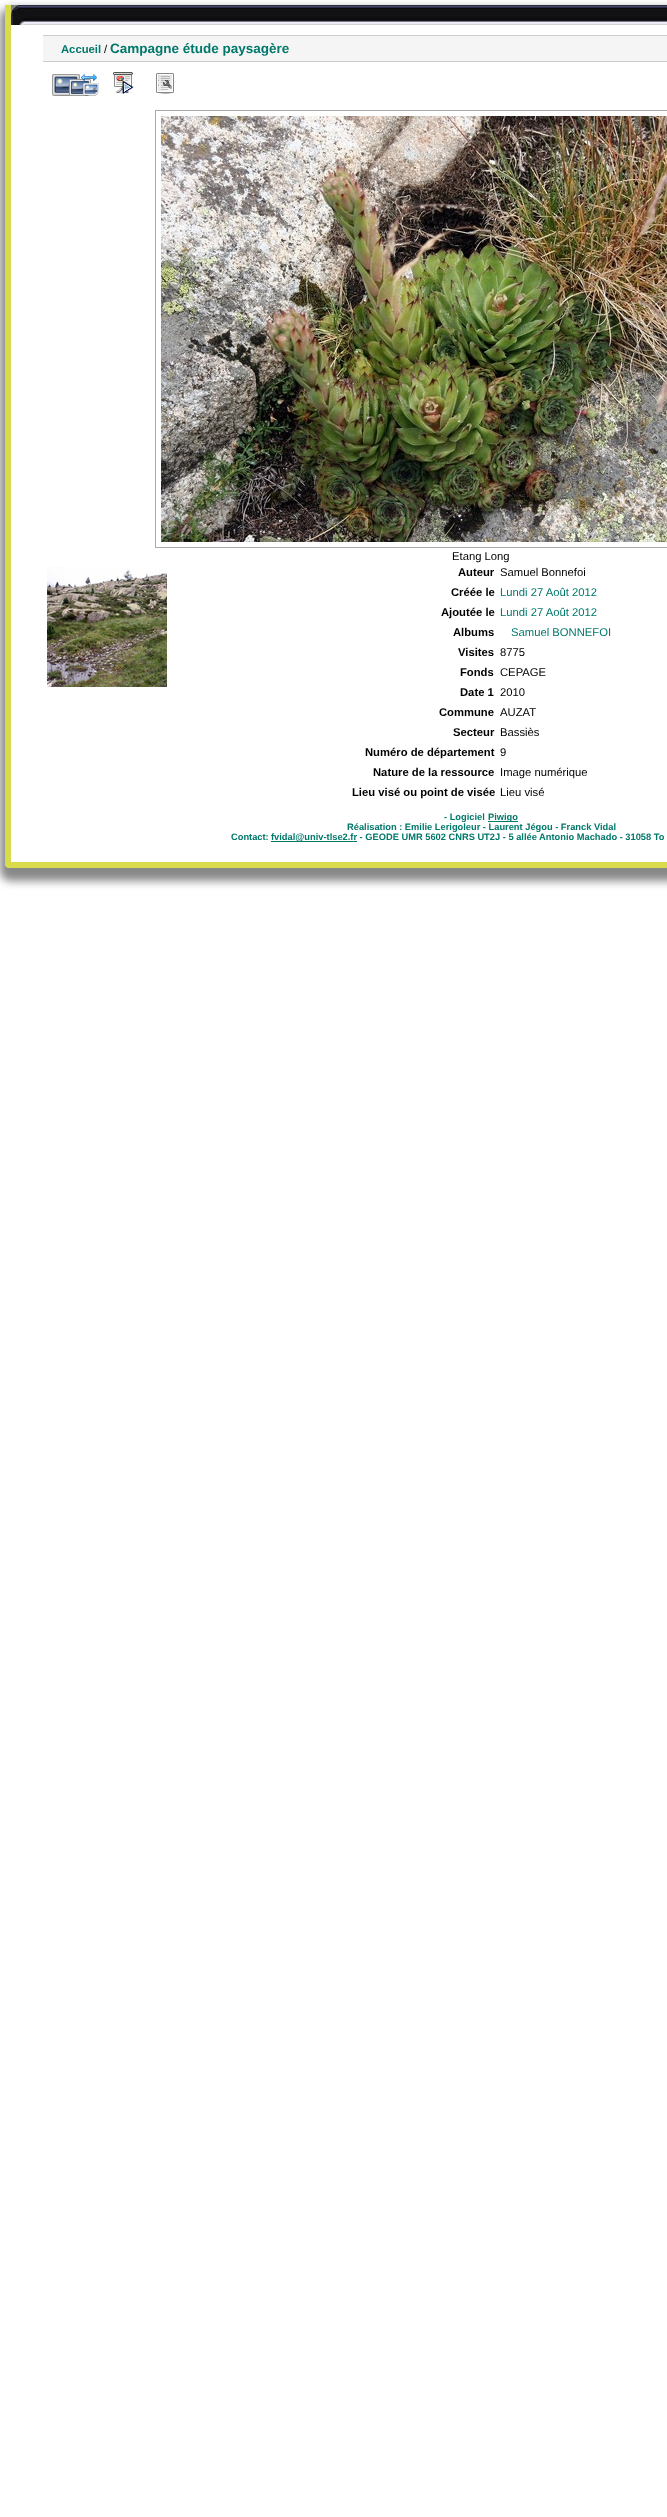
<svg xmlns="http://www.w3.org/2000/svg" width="667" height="2517">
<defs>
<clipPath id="clip1"><path d="M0 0h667v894h-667zm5 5h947c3 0 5 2 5 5v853c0 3-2 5-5 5h-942c-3 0-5-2-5-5z" clip-rule="evenodd"/></clipPath>
</defs>
<rect width="100%" height="100%" fill="#fff"/>
<g clip-path="url(#clip1)">
<rect y="8" width="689" height="873" rx="10" fill="#888" filter="blur(4px)"/>
</g>
<path d="M5 5h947c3 0 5 2 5 5v853c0 3-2 5-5 5h-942c-3 0-5-2-5-5zm6 0h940v857h-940z" fill="#d8db4b" fill-rule="evenodd"/>
<image x="11" y="5" width="656" height="20" href="media/1.png"/>
<rect x="43" y="36" width="624" height="25" fill="#f5f5f5"/>
<rect x="43" y="35" width="624" height="1" fill="#cdcdcd"/>
<rect x="43" y="61" width="624" height="1" fill="#cdcdcd"/>
<text x="61" y="53" style="font-family:Liberation Sans;font-size:11.25px;font-weight:bold;fill:#00786a">Accueil</text>
<text x="104" y="53" style="font-family:Liberation Sans;font-size:11.25px;fill:#000">/</text>
<text x="110" y="53" style="font-family:Liberation Sans;font-size:13.5px;font-weight:bold;fill:#00786a">Campagne étude paysagère</text>
<image x="52" y="74" width="47" height="22" href="media/2.png"/>
<image x="113" y="72" width="21" height="22" href="media/3.png"/>
<image x="156" y="73" width="18" height="21" href="media/4.png"/>
<rect x="155.5" y="110.5" width="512" height="437" fill="none" stroke="#aaa"/>
<image x="161" y="116" width="506" height="426" href="media/5.png"/>
<text x="452" y="560" style="font-family:Liberation Sans;font-size:11.25px;fill:#000">Etang Long</text>
<image x="47" y="567" width="120" height="120" href="media/6.png"/>
<text x="458" y="576" style="font-family:Liberation Sans;font-size:11.25px;font-weight:bold;fill:#000">Auteur</text>
<text x="500" y="576" style="font-family:Liberation Sans;font-size:11.25px;fill:#000">Samuel Bonnefoi</text>
<text x="451" y="596" style="font-family:Liberation Sans;font-size:11.25px;font-weight:bold;fill:#000">Créée le</text>
<text x="500" y="596" style="font-family:Liberation Sans;font-size:11.25px;fill:#00786a">Lundi 27 Août 2012</text>
<text x="441" y="616" style="font-family:Liberation Sans;font-size:11.25px;font-weight:bold;fill:#000">Ajoutée le</text>
<text x="500" y="616" style="font-family:Liberation Sans;font-size:11.25px;fill:#00786a">Lundi 27 Août 2012</text>
<text x="453" y="636" style="font-family:Liberation Sans;font-size:11.25px;font-weight:bold;fill:#000">Albums</text>
<text x="511" y="636" style="font-family:Liberation Sans;font-size:11.25px;fill:#00786a">Samuel BONNEFOI</text>
<text x="458" y="656" style="font-family:Liberation Sans;font-size:11.25px;font-weight:bold;fill:#000">Visites</text>
<text x="500" y="656" style="font-family:Liberation Sans;font-size:11.25px;fill:#000">8775</text>
<text x="460" y="676" style="font-family:Liberation Sans;font-size:11.25px;font-weight:bold;fill:#000">Fonds</text>
<text x="500" y="676" style="font-family:Liberation Sans;font-size:11.25px;fill:#000">CEPAGE</text>
<text x="460" y="696" style="font-family:Liberation Sans;font-size:11.25px;font-weight:bold;fill:#000">Date 1</text>
<text x="500" y="696" style="font-family:Liberation Sans;font-size:11.25px;fill:#000">2010</text>
<text x="439" y="716" style="font-family:Liberation Sans;font-size:11.25px;font-weight:bold;fill:#000">Commune</text>
<text x="500" y="716" style="font-family:Liberation Sans;font-size:11.25px;fill:#000">AUZAT</text>
<text x="453" y="736" style="font-family:Liberation Sans;font-size:11.25px;font-weight:bold;fill:#000">Secteur</text>
<text x="500" y="736" style="font-family:Liberation Sans;font-size:11.25px;fill:#000">Bassiès</text>
<text x="365" y="756" style="font-family:Liberation Sans;font-size:11.25px;font-weight:bold;fill:#000">Numéro de département</text>
<text x="500" y="756" style="font-family:Liberation Sans;font-size:11.25px;fill:#000">9</text>
<text x="373" y="776" style="font-family:Liberation Sans;font-size:11.25px;font-weight:bold;fill:#000">Nature de la ressource</text>
<text x="500" y="776" style="font-family:Liberation Sans;font-size:11.25px;fill:#000">Image numérique</text>
<text x="352" y="796" style="font-family:Liberation Sans;font-size:11.25px;font-weight:bold;fill:#000">Lieu visé ou point de visée</text>
<text x="500" y="796" style="font-family:Liberation Sans;font-size:11.25px;fill:#000">Lieu visé</text>
<text x="444" y="820" style="font-family:Liberation Sans;font-size:9.3px;font-weight:bold;fill:#00786a">- Logiciel</text>
<rect x="488" y="821" width="30" height="1" fill="#00786a"/>
<text x="488" y="820" style="font-family:Liberation Sans;font-size:9.3px;font-weight:bold;fill:#00786a">Piwigo</text>
<text x="347" y="830" style="font-family:Liberation Sans;font-size:9.3px;font-weight:bold;fill:#00786a">Réalisation : Emilie Lerigoleur - Laurent Jégou - Franck Vidal</text>
<text x="231" y="840" style="font-family:Liberation Sans;font-size:9.3px;font-weight:bold;fill:#00786a">Contact:</text>
<rect x="271" y="841" width="86" height="1" fill="#00786a"/>
<text x="271" y="840" style="font-family:Liberation Sans;font-size:9.3px;font-weight:bold;fill:#00786a">fvidal@univ-tlse2.fr - GEODE UMR 5602 CNRS UT2J - 5 allée Antonio Machado - 31058 To</text>
</svg>
